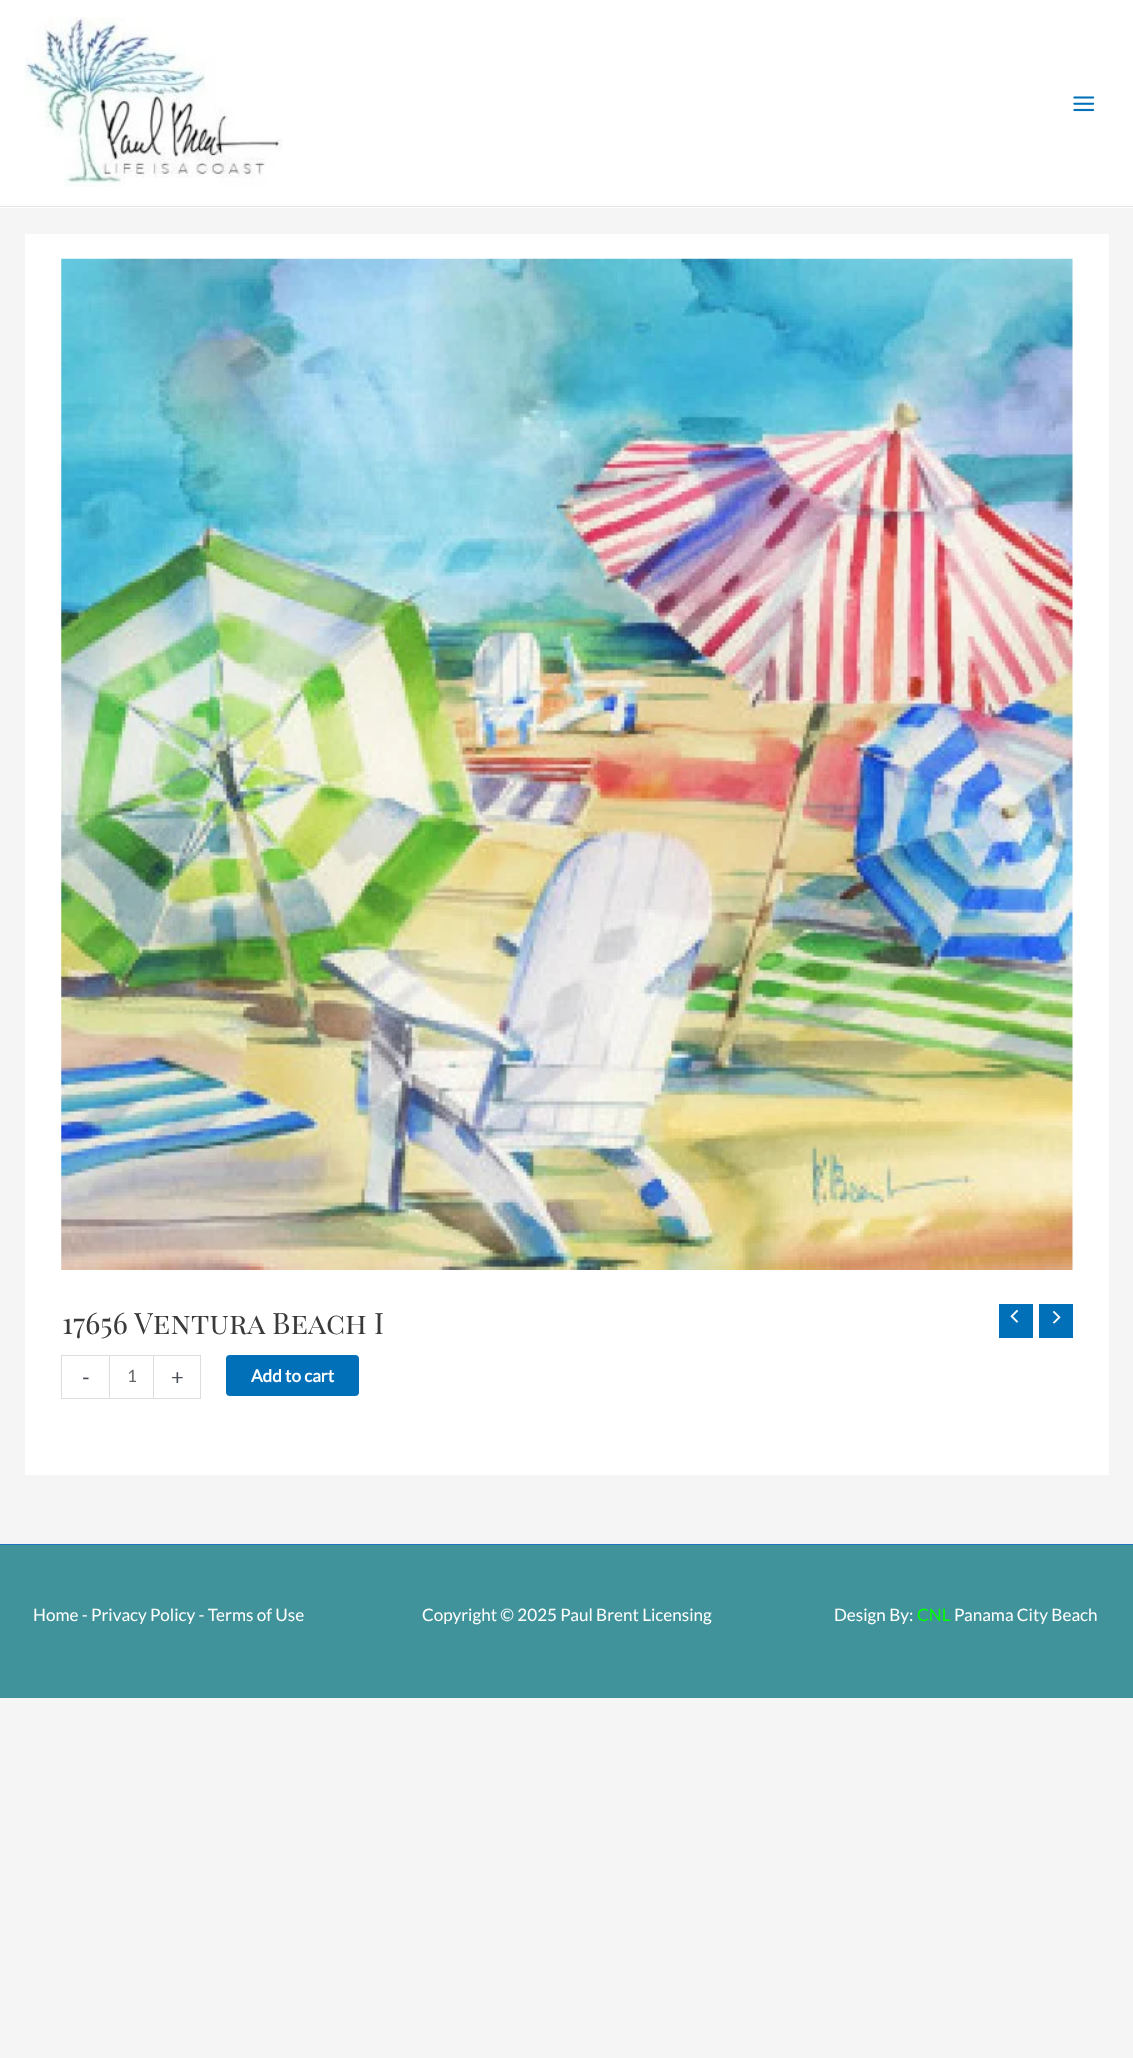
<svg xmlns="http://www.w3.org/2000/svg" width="1133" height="2058">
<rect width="100%" height="100%" fill="#f5f5f5"/>
<rect width="1133" height="208" fill="#fff"/>
<rect y="206" width="1133" height="1" fill="#e5e5e5"/>
<image x="25" y="17" width="258" height="170" href="media/1.png"/>
<image x="1073" y="96" width="22" height="16" href="media/2.png"/>
<rect x="25" y="234" width="1084" height="1241" fill="#fff"/>
<image x="61" y="258" width="1012" height="1012" href="media/3.png"/>
<text x="62" y="1334" style="font-family:Playfair Display SC;font-size:29.6px;fill:#3a3a3a">17656 Ventura Beach I</text>
<rect x="999" y="1304" width="34" height="34" fill="#0170b9"/>
<image x="1010" y="1310" width="9" height="13" href="media/4.png"/>
<rect x="1039" y="1304" width="34" height="34" fill="#0170b9"/>
<image x="1052" y="1310" width="9" height="14" href="media/5.png"/>
<rect x="61" y="1355" width="48" height="1" fill="#ddd"/>
<rect x="61" y="1398" width="48" height="1" fill="#ddd"/>
<rect x="61" y="1355" width="1" height="44" fill="#ddd"/>
<text x="82" y="1385" style="font-family:Lato;font-size:22px;fill:#4b4f58">-</text>
<rect x="109.5" y="1355.5" width="44" height="43" fill="none" stroke="#ddd"/>
<text x="127" y="1382" style="font-family:Lato;font-size:17.1px;fill:#666">1</text>
<rect x="154" y="1355" width="47" height="1" fill="#ddd"/>
<rect x="200" y="1355" width="1" height="44" fill="#ddd"/>
<rect x="154" y="1398" width="47" height="1" fill="#ddd"/>
<text x="171" y="1385" style="font-family:Lato;font-size:22px;fill:#4b4f58">+</text>
<rect x="226" y="1355" width="133" height="41" rx="4" fill="#0170b9"/>
<text x="251" y="1382" style="font-family:Lato;font-size:17.1px;font-weight:bold;fill:#fff">Add to cart</text>
<rect y="1545" width="1133" height="153" fill="#41939b"/>
<rect y="1544" width="1133" height="1" fill="#1e73be"/>
<text x="33" y="1621" style="font-family:Lato;font-size:17.1px;fill:#fff">Home - Privacy Policy - Terms of Use</text>
<text x="422" y="1621" style="font-family:Lato;font-size:17.1px;fill:#fff">Copyright © 2025 Paul Brent Licensing</text>
<text x="834" y="1621" style="font-family:Lato;font-size:17.1px;fill:#fff">Design By:</text>
<text x="917" y="1621" style="font-family:Lato;font-size:17.1px;fill:#0f0">CNL</text>
<text x="954" y="1621" style="font-family:Lato;font-size:17.1px;fill:#fff">Panama City Beach</text>
</svg>
